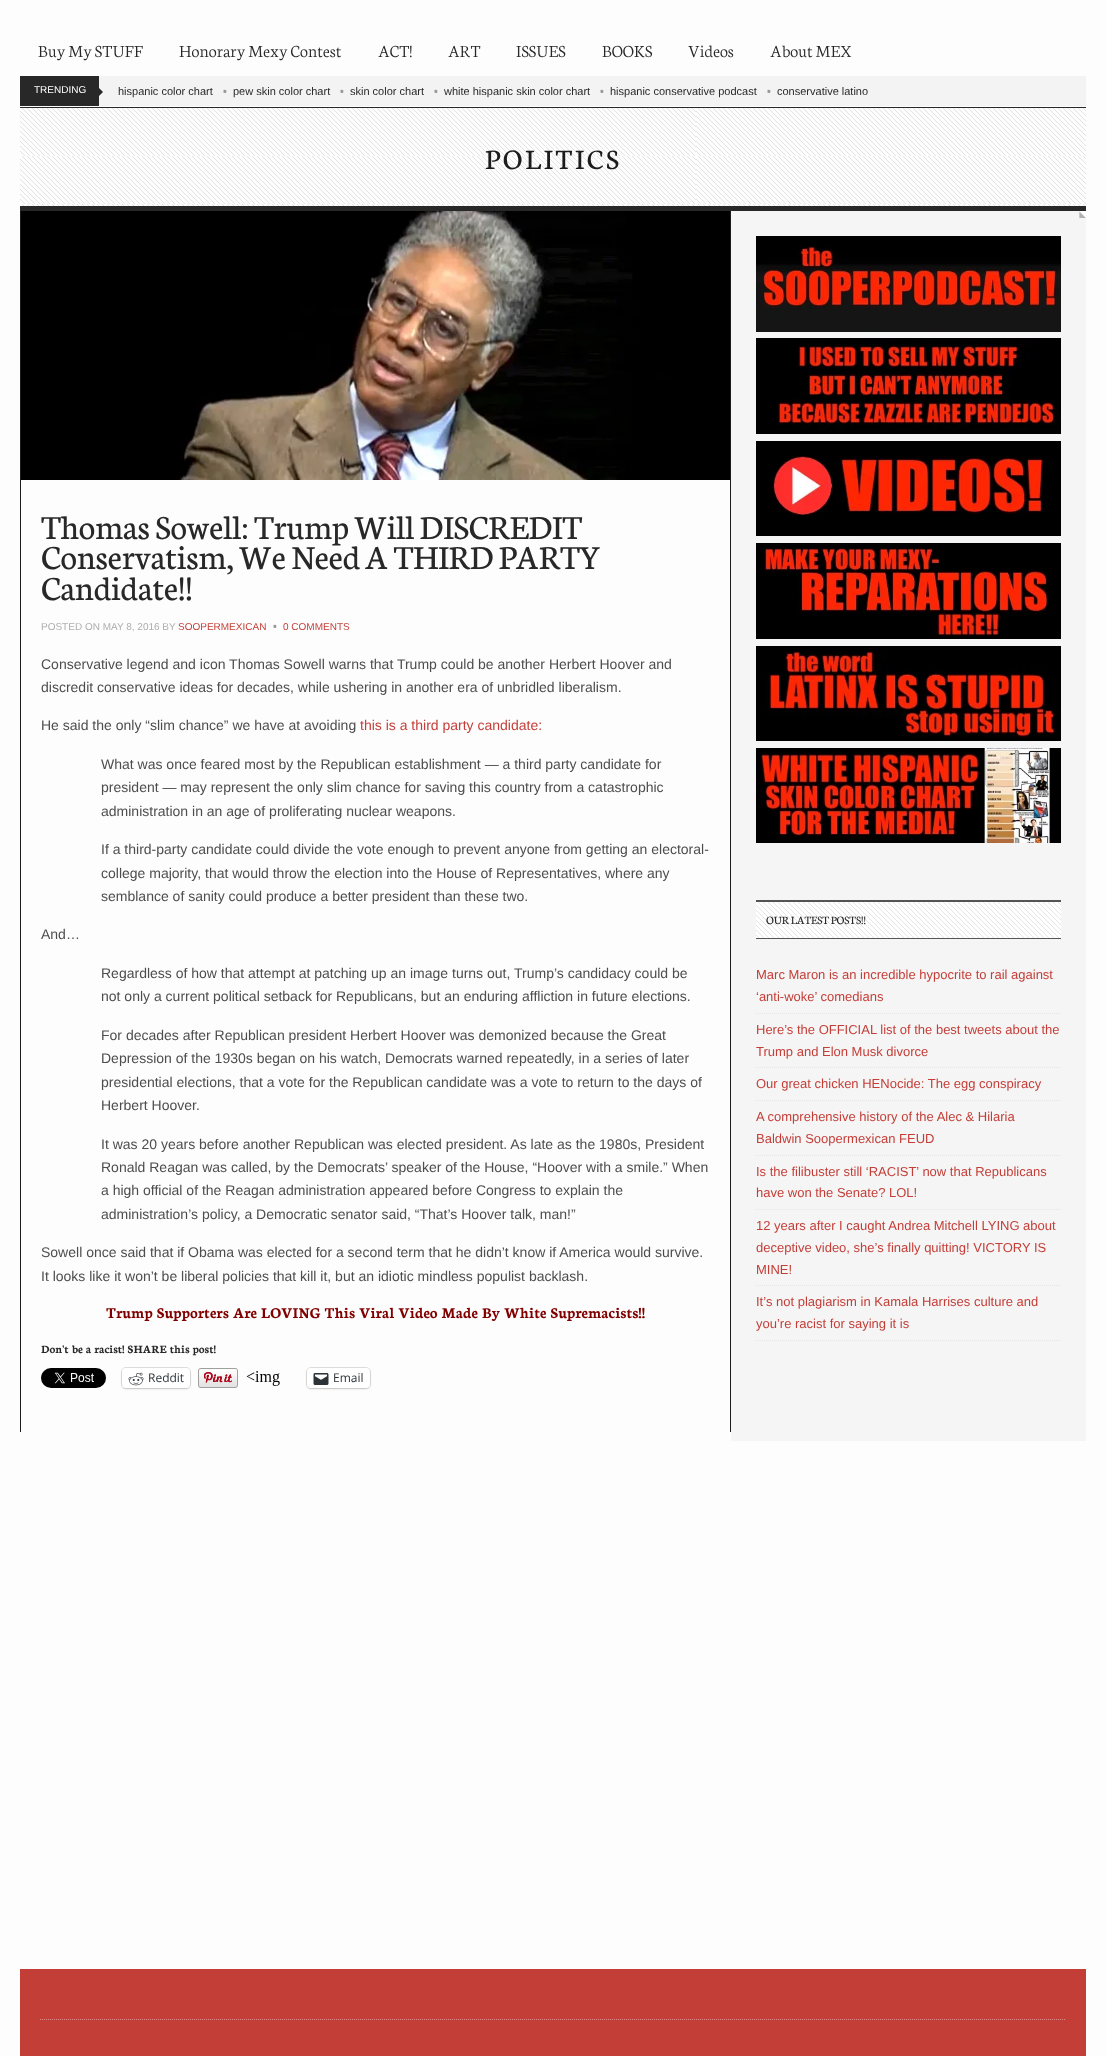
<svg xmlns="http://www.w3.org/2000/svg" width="1106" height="2056">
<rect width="100%" height="100%" fill="#fdfdfd"/>
<text x="38" y="57" style="font-family:Neuton;font-size:18px;font-weight:300;fill:#282828">Buy My STUFF</text>
<text x="179" y="57" style="font-family:Neuton;font-size:18px;font-weight:300;fill:#282828">Honorary Mexy Contest</text>
<text x="378" y="57" style="font-family:Neuton;font-size:18px;font-weight:300;fill:#282828">ACT!</text>
<text x="448" y="57" style="font-family:Neuton;font-size:18px;font-weight:300;fill:#282828">ART</text>
<text x="516" y="57" style="font-family:Neuton;font-size:18px;font-weight:300;fill:#282828">ISSUES</text>
<text x="602" y="57" style="font-family:Neuton;font-size:18px;font-weight:300;fill:#282828">BOOKS</text>
<text x="688" y="57" style="font-family:Neuton;font-size:18px;font-weight:300;fill:#282828">Videos</text>
<text x="770" y="57" style="font-family:Neuton;font-size:18px;font-weight:300;fill:#282828">About MEX</text>
<rect x="99" y="76" width="987" height="30" fill="#f3f3f3"/>
<rect x="20" y="76" width="79" height="30" fill="#282828"/>
<text x="34" y="93" style="font-family:Liberation Sans;font-size:10px;fill:#fff">TRENDING</text>
<path d="M99 96v-8l4 4z" fill="#282828"/>
<text x="118" y="95" style="font-family:Liberation Sans;font-size:11px;fill:#282828">hispanic color chart</text>
<text x="221" y="99" style="font-family:Liberation Sans;font-size:28px;fill:#979797">∙</text>
<text x="233" y="95" style="font-family:Liberation Sans;font-size:11px;fill:#282828">pew skin color chart</text>
<text x="338" y="99" style="font-family:Liberation Sans;font-size:28px;fill:#979797">∙</text>
<text x="350" y="95" style="font-family:Liberation Sans;font-size:11px;fill:#282828">skin color chart</text>
<text x="432" y="99" style="font-family:Liberation Sans;font-size:28px;fill:#979797">∙</text>
<text x="444" y="95" style="font-family:Liberation Sans;font-size:11px;fill:#282828">white hispanic skin color chart</text>
<text x="598" y="99" style="font-family:Liberation Sans;font-size:28px;fill:#979797">∙</text>
<text x="610" y="95" style="font-family:Liberation Sans;font-size:11px;fill:#282828">hispanic conservative podcast</text>
<text x="765" y="99" style="font-family:Liberation Sans;font-size:28px;fill:#979797">∙</text>
<text x="777" y="95" style="font-family:Liberation Sans;font-size:11px;fill:#282828">conservative latino</text>
<image x="20" y="108" width="1066" height="98" href="media/1.png"/>
<rect x="20" y="107" width="1066" height="1" fill="#282828"/>
<rect x="20" y="206" width="1066" height="5" fill="#282828"/>
<text x="485" y="169" style="font-family:Neuton;font-size:30px;letter-spacing:3px;fill:#1c1c1c">POLITICS</text>
<rect x="730" y="211" width="1" height="1221" fill="#1c1c1c"/>
<rect x="20" y="211" width="1" height="1221" fill="#1c1c1c"/>
<image x="21" y="211" width="709" height="269" href="media/2.png"/>
<text x="41" y="539" style="font-family:Neuton;font-size:36px;fill:#282828">Thomas Sowell: Trump Will DISCREDIT</text>
<text x="41" y="569" style="font-family:Neuton;font-size:36px;fill:#282828">Conservatism, We Need A THIRD PARTY</text>
<text x="41" y="600" style="font-family:Neuton;font-size:36px;fill:#282828">Candidate!!</text>
<text x="41" y="630" style="font-family:Liberation Sans;font-size:10px;fill:#adadad">POSTED ON MAY 8, 2016 BY</text>
<text x="178" y="630" style="font-family:Liberation Sans;font-size:10px;fill:#c43e38">SOOPERMEXICAN</text>
<text x="271" y="634" style="font-family:Liberation Sans;font-size:28px;fill:#979797">∙</text>
<text x="283" y="630" style="font-family:Liberation Sans;font-size:10px;fill:#c43e38">0 COMMENTS</text>
<text x="41" y="669" style="font-family:Liberation Sans;font-size:14px;fill:#4d4d4d">Conservative legend and icon Thomas Sowell warns that Trump could be another Herbert Hoover and</text>
<text x="41" y="692" style="font-family:Liberation Sans;font-size:14px;fill:#4d4d4d">discredit conservative ideas for decades, while ushering in another era of unbridled liberalism.</text>
<text x="41" y="730" style="font-family:Liberation Sans;font-size:14px;fill:#4d4d4d">He said the only “slim chance” we have at avoiding</text>
<text x="360" y="730" style="font-family:Liberation Sans;font-size:14px;fill:#c43e38">this is a third party candidate:</text>
<text x="101" y="769" style="font-family:Liberation Sans;font-size:14px;fill:#4d4d4d">What was once feared most by the Republican establishment — a third party candidate for</text>
<text x="101" y="792" style="font-family:Liberation Sans;font-size:14px;fill:#4d4d4d">president — may represent the only slim chance for saving this country from a catastrophic</text>
<text x="101" y="816" style="font-family:Liberation Sans;font-size:14px;fill:#4d4d4d">administration in an age of proliferating nuclear weapons.</text>
<text x="101" y="854" style="font-family:Liberation Sans;font-size:14px;fill:#4d4d4d">If a third-party candidate could divide the vote enough to prevent anyone from getting an electoral-</text>
<text x="101" y="878" style="font-family:Liberation Sans;font-size:14px;fill:#4d4d4d">college majority, that would throw the election into the House of Representatives, where any</text>
<text x="101" y="901" style="font-family:Liberation Sans;font-size:14px;fill:#4d4d4d">semblance of sanity could produce a better president than these two.</text>
<text x="41" y="939" style="font-family:Liberation Sans;font-size:14px;fill:#4d4d4d">And…</text>
<text x="101" y="978" style="font-family:Liberation Sans;font-size:14px;fill:#4d4d4d">Regardless of how that attempt at patching up an image turns out, Trump’s candidacy could be</text>
<text x="101" y="1001" style="font-family:Liberation Sans;font-size:14px;fill:#4d4d4d">not only a current political setback for Republicans, but an enduring affliction in future elections.</text>
<text x="101" y="1040" style="font-family:Liberation Sans;font-size:14px;fill:#4d4d4d">For decades after Republican president Herbert Hoover was demonized because the Great</text>
<text x="101" y="1063" style="font-family:Liberation Sans;font-size:14px;fill:#4d4d4d">Depression of the 1930s began on his watch, Democrats warned repeatedly, in a series of later</text>
<text x="101" y="1087" style="font-family:Liberation Sans;font-size:14px;fill:#4d4d4d">presidential elections, that a vote for the Republican candidate was a vote to return to the days of</text>
<text x="101" y="1110" style="font-family:Liberation Sans;font-size:14px;fill:#4d4d4d">Herbert Hoover.</text>
<text x="101" y="1149" style="font-family:Liberation Sans;font-size:14px;fill:#4d4d4d">It was 20 years before another Republican was elected president. As late as the 1980s, President</text>
<text x="101" y="1172" style="font-family:Liberation Sans;font-size:14px;fill:#4d4d4d">Ronald Reagan was called, by the Democrats’ speaker of the House, “Hoover with a smile.” When</text>
<text x="101" y="1195" style="font-family:Liberation Sans;font-size:14px;fill:#4d4d4d">a high official of the Reagan administration appeared before Congress to explain the</text>
<text x="101" y="1219" style="font-family:Liberation Sans;font-size:14px;fill:#4d4d4d">administration’s policy, a Democratic senator said, “That’s Hoover talk, man!”</text>
<text x="41" y="1257" style="font-family:Liberation Sans;font-size:14px;fill:#4d4d4d">Sowell once said that if Obama was elected for a second term that he didn’t know if America would survive.</text>
<text x="41" y="1281" style="font-family:Liberation Sans;font-size:14px;fill:#4d4d4d">It looks like it won’t be liberal policies that kill it, but an idiotic mindless populist backlash.</text>
<text x="106" y="1318" style="font-family:Neuton;font-size:16px;font-weight:bold;fill:#800000">Trump Supporters Are LOVING This Viral Video Made By White Supremacists!!</text>
<text x="41" y="1353" style="font-family:Neuton;font-size:12px;font-weight:bold;fill:#282828">Don't be a racist! SHARE this post!</text>
<image x="41" y="1368" width="65" height="20" href="media/3.png"/>
<rect x="121.5" y="1367.5" width="69" height="21" rx="4.5" fill="none" stroke="#dfdfdf"/>
<rect x="122" y="1369" width="68" height="20" rx="4" fill="#0000001f" filter="blur(1px)"/>
<rect x="122" y="1368" width="68" height="20" rx="4" fill="#fff"/>
<image x="128" y="1372" width="16" height="14" href="media/4.png"/>
<text x="148" y="1382" style="font-family:Open Sans;font-size:12px;fill:#2c3338">Reddit</text>
<image x="198" y="1368" width="40" height="20" href="media/5.png"/>
<image x="246" y="1371" width="34" height="15" href="media/6.png"/>
<rect x="306.5" y="1367.5" width="64" height="21" rx="4.5" fill="none" stroke="#dfdfdf"/>
<rect x="307" y="1369" width="63" height="20" rx="4" fill="#0000001f" filter="blur(1px)"/>
<rect x="307" y="1368" width="63" height="20" rx="4" fill="#fff"/>
<image x="313" y="1373" width="16" height="12" href="media/7.png"/>
<text x="333" y="1382" style="font-family:Open Sans;font-size:12px;fill:#2c3338">Email</text>
<rect x="731" y="211" width="355" height="1230" fill="#f5f5f5"/>
<image x="1079" y="211" width="7" height="7" href="media/8.png"/>
<image x="756" y="236" width="305" height="96" href="media/9.png"/>
<image x="756" y="338" width="305" height="96" href="media/10.png"/>
<image x="756" y="441" width="305" height="95" href="media/11.png"/>
<image x="756" y="543" width="305" height="96" href="media/12.png"/>
<image x="756" y="646" width="305" height="95" href="media/13.png"/>
<image x="756" y="748" width="305" height="95" href="media/14.png"/>
<rect x="756" y="902" width="305" height="36" fill="#fff"/>
<image x="756" y="902" width="305" height="36" href="media/15.png"/>
<rect x="756" y="900" width="305" height="2" fill="#545454"/>
<rect x="756" y="938" width="305" height="1" fill="#545454"/>
<text x="766" y="924" style="font-family:Neuton;font-size:12px;fill:#282828">OUR LATEST POSTS!!</text>
<path d="M756 1013.5h305" fill="none" stroke="#e5e5e5" stroke-dasharray="1 1"/>
<text x="756" y="979" style="font-family:Liberation Sans;font-size:13px;fill:#c43e38">Marc Maron is an incredible hypocrite to rail against</text>
<text x="756" y="1001" style="font-family:Liberation Sans;font-size:13px;fill:#c43e38">‘anti-woke’ comedians</text>
<path d="M756 1067.5h305" fill="none" stroke="#e5e5e5" stroke-dasharray="1 1"/>
<text x="756" y="1034" style="font-family:Liberation Sans;font-size:13px;fill:#c43e38">Here’s the OFFICIAL list of the best tweets about the</text>
<text x="756" y="1056" style="font-family:Liberation Sans;font-size:13px;fill:#c43e38">Trump and Elon Musk divorce</text>
<path d="M756 1100.5h305" fill="none" stroke="#e5e5e5" stroke-dasharray="1 1"/>
<text x="756" y="1088" style="font-family:Liberation Sans;font-size:13px;fill:#c43e38">Our great chicken HENocide: The egg conspiracy</text>
<path d="M756 1155.5h305" fill="none" stroke="#e5e5e5" stroke-dasharray="1 1"/>
<text x="756" y="1121" style="font-family:Liberation Sans;font-size:13px;fill:#c43e38">A comprehensive history of the Alec &amp; Hilaria</text>
<text x="756" y="1143" style="font-family:Liberation Sans;font-size:13px;fill:#c43e38">Baldwin Soopermexican FEUD</text>
<path d="M756 1209.5h305" fill="none" stroke="#e5e5e5" stroke-dasharray="1 1"/>
<text x="756" y="1176" style="font-family:Liberation Sans;font-size:13px;fill:#c43e38">Is the filibuster still ‘RACIST’ now that Republicans</text>
<text x="756" y="1197" style="font-family:Liberation Sans;font-size:13px;fill:#c43e38">have won the Senate? LOL!</text>
<path d="M756 1285.5h305" fill="none" stroke="#e5e5e5" stroke-dasharray="1 1"/>
<text x="756" y="1230" style="font-family:Liberation Sans;font-size:13px;fill:#c43e38">12 years after I caught Andrea Mitchell LYING about</text>
<text x="756" y="1252" style="font-family:Liberation Sans;font-size:13px;fill:#c43e38">deceptive video, she’s finally quitting! VICTORY IS</text>
<text x="756" y="1274" style="font-family:Liberation Sans;font-size:13px;fill:#c43e38">MINE!</text>
<path d="M756 1340.5h305" fill="none" stroke="#e5e5e5" stroke-dasharray="1 1"/>
<text x="756" y="1306" style="font-family:Liberation Sans;font-size:13px;fill:#c43e38">It’s not plagiarism in Kamala Harrises culture and</text>
<text x="756" y="1328" style="font-family:Liberation Sans;font-size:13px;fill:#c43e38">you’re racist for saying it is</text>
<rect x="20" y="1969" width="1066" height="87" fill="#c43e38"/>
<path d="M40 2019.5h1026" fill="none" stroke="#dc8b88" stroke-dasharray="1 1"/>
</svg>
